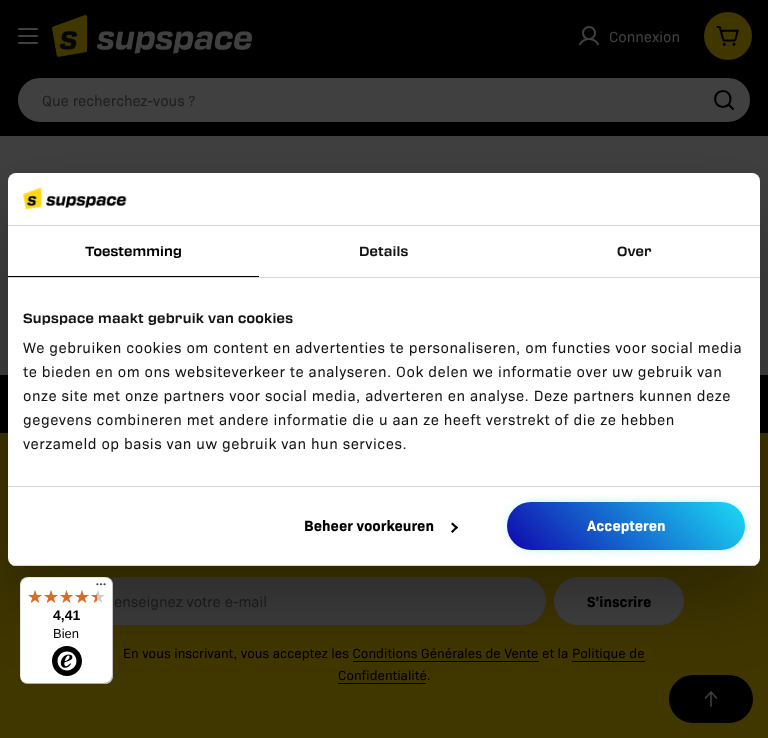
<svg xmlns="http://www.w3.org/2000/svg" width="768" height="738">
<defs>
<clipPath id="clip1"><rect x="8" y="173" width="752" height="393" rx="8"/></clipPath>
<linearGradient id="g1" gradientUnits="userSpaceOnUse" x1="614" y1="657" x2="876" y2="395"><stop offset="0" stop-color="#1007ad"/><stop offset="0.51" stop-color="#1bcdf1"/><stop offset="1" stop-color="#00a3e0"/></linearGradient>
</defs>
<rect width="100%" height="100%" fill="#404040"/>
<rect width="768" height="136" fill="#000"/>
<rect x="18" y="35" width="20" height="2" rx="1" fill="#404040"/>
<rect x="18" y="28" width="20" height="2" rx="1" fill="#404040"/>
<rect x="18" y="42" width="20" height="2" rx="1" fill="#404040"/>
<image x="52" y="15" width="200" height="42" href="media/1.png"/>
<image x="578" y="26" width="22" height="20" href="media/2.png"/>
<text x="609" y="42" style="font-family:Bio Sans;font-size:15px;fill:#404040">Connexion</text>
<circle cx="728" cy="36" r="24" fill="#403600"/>
<image x="716" y="26" width="23" height="20" href="media/3.png"/>
<rect x="17" y="77" width="734" height="46" rx="23" fill="#404040" stroke="#000" stroke-width="2"/>
<text x="42" y="106" style="font-family:Bio Sans;font-size:15px;fill:#1f1f1f">Que recherchez-vous ?</text>
<path d="M723 107c10 0 10-16 0-16c-10.5 0-10.5 16 0 16zm5.5-2.5l4.5 4.5" fill="none" stroke="#000" stroke-width="2" stroke-linecap="round" stroke-linejoin="round"/>
<rect y="375" width="768" height="58" fill="#000"/>
<rect y="433" width="768" height="305" fill="#403600"/>
<rect x="84" y="577" width="462" height="48" rx="24" fill="#3d3d3d"/>
<text x="114" y="607" style="font-family:Bio Sans;font-size:15px;fill:#1f1f1f">enseignez votre e-mail</text>
<rect x="554.5" y="577.5" width="129" height="47" rx="23.5" fill="#404040" stroke="#404040"/>
<text x="587" y="607" style="font-family:Bio Sans;font-size:15px;font-weight:bold;fill:#000">S'inscrire</text>
<text x="123" y="658" style="font-family:Bio Sans;font-size:13.5px;fill:#000">En vous inscrivant, vous acceptez les Conditions Générales de Vente et la Politique de</text>
<rect x="353" y="661" width="186" height="1" fill="#000"/>
<text x="338" y="680" style="font-family:Bio Sans;font-size:13.5px;fill:#000">Confidentialité.</text>
<rect x="572" y="661" width="73" height="1" fill="#000"/>
<rect x="338" y="683" width="88" height="1" fill="#000"/>
<rect x="669" y="675" width="84" height="48" rx="24" fill="#000"/>
<path d="M711 706v-14m-5.5 6l5.5-6l5.5 6" fill="none" stroke="#404040" stroke-width="1.5" stroke-linecap="round" stroke-linejoin="round"/>
<rect x="8" y="205" width="752" height="393" rx="8" fill="#0000004d" filter="blur(34px)"/>
<rect x="8" y="173" width="752" height="393" rx="8" fill="#fff"/>
<rect x="8" y="225" width="752" height="1" fill="#d6d6d6"/>
<image x="23" y="187" width="104" height="23" href="media/4.png"/>
<rect x="8" y="277" width="752" height="1" fill="#d6d6d6"/>
<rect x="8" y="276" width="251" height="1" fill="#000"/>
<text x="85" y="256" style="font-family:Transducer;font-size:13px;font-weight:bold;letter-spacing:0.1px;fill:#000">Toestemming</text>
<text x="359" y="256" style="font-family:Transducer;font-size:13px;font-weight:bold;letter-spacing:0.1px;fill:#141414">Details</text>
<text x="617" y="256" style="font-family:Transducer;font-size:13px;font-weight:bold;letter-spacing:0.1px;fill:#141414">Over</text>
<rect x="8" y="486" width="752" height="1" fill="#d6d6d6"/>
<text x="23" y="323" style="font-family:Transducer;font-size:13px;font-weight:bold;letter-spacing:0.25px;fill:#141414">Supspace maakt gebruik van cookies</text>
<text x="23" y="353" style="font-family:Bio Sans;font-size:15px;letter-spacing:0.5px;fill:#141414">We gebruiken cookies om content en advertenties te personaliseren, om functies voor social media</text>
<text x="23" y="377" style="font-family:Bio Sans;font-size:15px;letter-spacing:0.5px;fill:#141414">te bieden en om ons websiteverkeer te analyseren. Ook delen we informatie over uw gebruik van</text>
<text x="23" y="401" style="font-family:Bio Sans;font-size:15px;letter-spacing:0.5px;fill:#141414">onze site met onze partners voor social media, adverteren en analyse. Deze partners kunnen deze</text>
<text x="23" y="425" style="font-family:Bio Sans;font-size:15px;letter-spacing:0.5px;fill:#141414">gegevens combineren met andere informatie die u aan ze heeft verstrekt of die ze hebben</text>
<text x="23" y="449" style="font-family:Bio Sans;font-size:15px;letter-spacing:0.5px;fill:#141414">verzameld op basis van uw gebruik van hun services.</text>
<g clip-path="url(#clip1)">
<rect x="8" y="565" width="752" height="1" fill="#d6d6d6"/>
</g>
<text x="304" y="531" style="font-family:Bio Sans;font-size:15px;font-weight:bold;fill:#000">Beheer voorkeuren</text>
<path d="M452.5 522.5l5.5 5l-1.5 1.5l-5.5-5z" fill="#000"/>
<path d="M456.5 526l1.5 1.5l-5.5 5.5l-1.5-1.5z" fill="#000"/>
<rect x="514" y="509" width="224" height="34" rx="17" fill="#1bcdf1" filter="blur(7px)"/>
<rect x="507" y="502" width="238" height="48" rx="24" fill="url(#g1)"/>
<text x="587" y="531" style="font-family:Bio Sans;font-size:15px;font-weight:bold;fill:#fff">Accepteren</text>
<rect x="20" y="577" width="93" height="107" rx="8" fill="#fff"/>
<path d="M29 578h77c2 0 4 1 6 3c-2-2-4-4-7-4h-77c-4 0-8 4-8 8v91c0 3 2 5 4 7c-2-2-3-4-3-6v-91c0-4 4-8 8-8z" fill="#0000001a"/>
<path d="M21 680c2 2 4 4 7 4h77c4 0 8-4 8-8v-91c0-3-2-5-4-7c2 2 3 4 3 6v91c0 4-4 8-8 8h-77c-2 0-4-1-6-3z" fill="#00000033"/>
<path d="M22 681c1 2 4 3 6 3h77c4 0 8-4 8-8v-91c0-2-1-5-3-6c1 1 2 3 2 5v91c0 5-3 8-8 8h-77c-2 0-4-1-5-2z" fill="#32323233"/>
<path d="M104 684h1c4 0 8-4 8-8v-91c0-2-1-5-3-6c1 1 2 3 2 5v92c0 4-3 8-8 8z" fill="#ffffff4d"/>
<image x="96" y="583" width="10" height="3" href="media/5.png"/>
<image x="28" y="590" width="14" height="13" href="media/6.png"/>
<image x="44" y="590" width="14" height="13" href="media/6.png"/>
<image x="60" y="590" width="13" height="13" href="media/7.png"/>
<image x="75" y="590" width="14" height="13" href="media/6.png"/>
<image x="91" y="590" width="14" height="13" href="media/6.png"/>
<image x="28" y="590" width="14" height="13" href="media/8.png"/>
<image x="44" y="590" width="14" height="13" href="media/8.png"/>
<image x="60" y="590" width="13" height="13" href="media/9.png"/>
<image x="75" y="590" width="14" height="13" href="media/8.png"/>
<image x="91" y="593" width="6" height="10" href="media/10.png"/>
<text x="53" y="620" style="font-family:Liberation Sans;font-size:14px;font-weight:bold;fill:#000">4,41</text>
<text x="53" y="638" style="font-family:Liberation Sans;font-size:13px;fill:#000">Bien</text>
<image x="52" y="646" width="30" height="30" href="media/11.png"/>
</svg>
